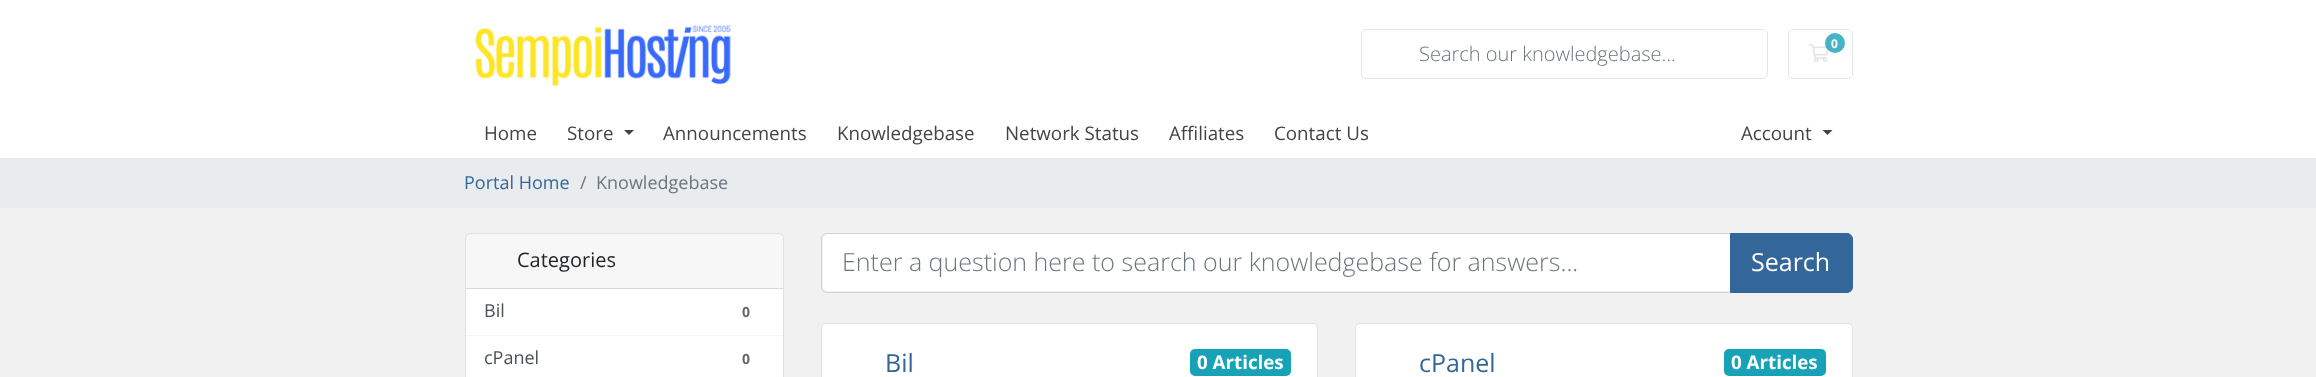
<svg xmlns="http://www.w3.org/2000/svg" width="2316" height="377">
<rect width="100%" height="100%" fill="#f1f1f1"/>
<rect width="2316" height="158" fill="#fff"/>
<image x="475" y="25" width="256" height="61" href="media/1.png"/>
<rect x="1788.5" y="29.5" width="64" height="49" rx="4.5" fill="none" stroke="#e5e5e5"/>
<image x="1808" y="44" width="21" height="19" href="media/2.png"/>
<circle cx="1835" cy="43" r="10" fill="#17a2b8cc"/>
<text x="1831" y="48" style="font-family:Open Sans;font-size:12px;font-weight:bold;fill:#fff">0</text>
<rect x="1361.5" y="29.5" width="406" height="49" rx="4.5" fill="none" stroke="#e5e5e5"/>
<text x="1419" y="61" style="font-family:Open Sans;font-size:20px;font-weight:300;fill:#6c757d">Search our knowledgebase...</text>
<text x="484" y="140" style="font-family:Open Sans;font-size:18.75px;fill:#444">Home</text>
<text x="567" y="140" style="font-family:Open Sans;font-size:18.75px;fill:#444">Store</text>
<path d="M624 130h10l-5 5z" fill="#444"/>
<text x="663" y="140" style="font-family:Open Sans;font-size:18.75px;fill:#444">Announcements</text>
<text x="837" y="140" style="font-family:Open Sans;font-size:18.75px;fill:#444">Knowledgebase</text>
<text x="1005" y="140" style="font-family:Open Sans;font-size:18.75px;fill:#444">Network Status</text>
<text x="1169" y="140" style="font-family:Open Sans;font-size:18.75px;fill:#444">Affiliates</text>
<text x="1274" y="140" style="font-family:Open Sans;font-size:18.75px;fill:#444">Contact Us</text>
<text x="1741" y="140" style="font-family:Open Sans;font-size:18.75px;fill:#444">Account</text>
<path d="M1822.5 130h10l-5 5z" fill="#444"/>
<rect y="158" width="2316" height="50" fill="#e9ecef"/>
<text x="464" y="189" style="font-family:Open Sans;font-size:18px;fill:#369">Portal Home</text>
<text x="580" y="189" style="font-family:Open Sans;font-size:18px;fill:#6c757d">/</text>
<text x="596" y="189" style="font-family:Open Sans;font-size:18px;fill:#6c757d">Knowledgebase</text>
<rect x="465" y="233" width="319" height="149" rx="5" fill="#fff"/>
<rect x="465.5" y="233.5" width="318" height="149" rx="4.5" fill="none" stroke="#0000001f"/>
<rect x="466" y="234" width="317" height="54" fill="#00000008"/>
<rect x="466" y="288" width="317" height="1" fill="#d8d8d8"/>
<text x="517" y="267" style="font-family:Open Sans;font-size:20px;fill:#212529">Categories</text>
<rect x="466" y="335" width="317" height="1" fill="#f5f5f5"/>
<text x="484" y="317" style="font-family:Open Sans;font-size:18px;fill:#495057">Bil</text>
<text x="742" y="317" style="font-family:Open Sans;font-size:14px;font-weight:bold;fill:#666">0</text>
<text x="484" y="364" style="font-family:Open Sans;font-size:18px;fill:#495057">cPanel</text>
<text x="742" y="364" style="font-family:Open Sans;font-size:14px;font-weight:bold;fill:#666">0</text>
<path d="M828 234h902v57h-902c-3 0-5-2-5-5v-47c0-3 2-5 5-5z" fill="#fff"/>
<path d="M827 233.5h903.5v59h-903.5c-3 0-5.5-2.5-5.5-5.5v-48c0-3 2.5-5.5 5.5-5.5z" fill="none" stroke="#ced4da"/>
<text x="842" y="271" style="font-family:Open Sans;font-size:25px;font-weight:300;fill:#6c757d">Enter a question here to search our knowledgebase for answers...</text>
<path d="M1730.5 233.5h116.5c3 0 5.5 2.5 5.5 5.5v48c0 3-2.5 5.5-5.5 5.5h-116.5z" fill="#369" stroke="#369"/>
<text x="1751" y="271" style="font-family:Open Sans;font-size:25px;fill:#fff">Search</text>
<rect x="821" y="323" width="497" height="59" rx="5" fill="#fff"/>
<rect x="821.5" y="323.5" width="496" height="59" rx="4.5" fill="none" stroke="#0000001f"/>
<text x="885" y="372" style="font-family:Open Sans;font-size:25px;fill:#369">Bil</text>
<rect x="1190" y="349" width="101" height="27" rx="5" fill="#17a2b8"/>
<text x="1197" y="369" style="font-family:Open Sans;font-size:18.75px;font-weight:bold;fill:#fff">0 Articles</text>
<rect x="1355" y="323" width="498" height="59" rx="5" fill="#fff"/>
<rect x="1355.5" y="323.5" width="497" height="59" rx="4.5" fill="none" stroke="#0000001f"/>
<text x="1419" y="372" style="font-family:Open Sans;font-size:25px;fill:#369">cPanel</text>
<rect x="1724" y="349" width="102" height="27" rx="5" fill="#17a2b8"/>
<text x="1731" y="369" style="font-family:Open Sans;font-size:18.75px;font-weight:bold;fill:#fff">0 Articles</text>
</svg>
